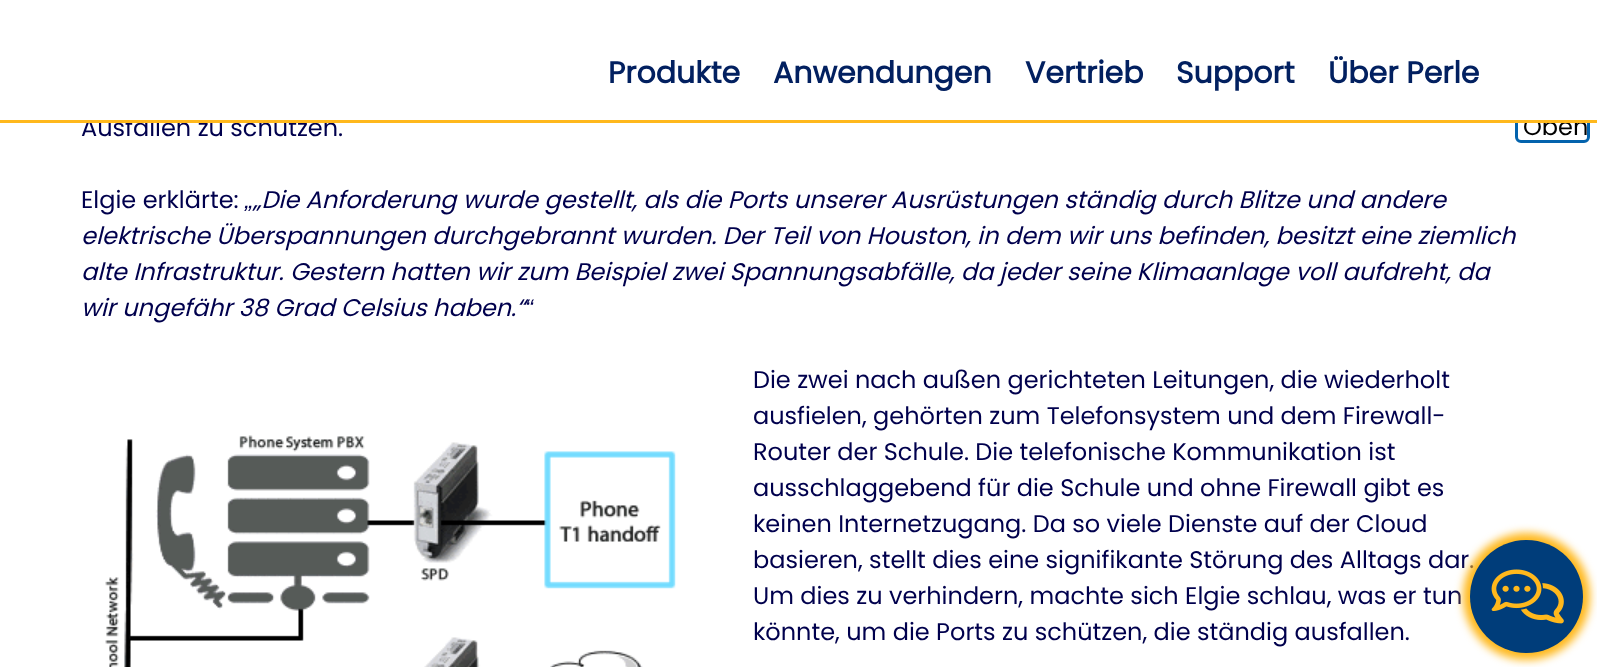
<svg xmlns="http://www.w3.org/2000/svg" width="1597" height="667">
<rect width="100%" height="100%" fill="#fff"/>
<text x="81" y="136" style="font-family:Poppins;font-size:24px;fill:#00004d">Ausfällen zu schützen.</text>
<rect x="1516.5" y="73.5" width="72" height="68" rx="4.5" fill="none" stroke="#0363ad" stroke-width="3"/>
<text x="1523" y="135" style="font-family:Poppins;font-size:24px;fill:#000">Oben</text>
<rect x="87" y="72" width="1503" height="48" fill="#fff"/>
<rect y="120" width="1597" height="3" fill="#ffb81c"/>
<text x="608" y="83" style="font-family:Poppins;font-size:30px;font-weight:bold;fill:#022060">Produkte</text>
<text x="773" y="83" style="font-family:Poppins;font-size:30px;font-weight:bold;fill:#022060">Anwendungen</text>
<text x="1025" y="83" style="font-family:Poppins;font-size:30px;font-weight:bold;fill:#022060">Vertrieb</text>
<text x="1176" y="83" style="font-family:Poppins;font-size:30px;font-weight:bold;fill:#022060">Support</text>
<text x="1328" y="83" style="font-family:Poppins;font-size:30px;font-weight:bold;fill:#022060">Über Perle</text>
<text x="81" y="208" style="font-family:Poppins;font-size:24px;fill:#00004d">Elgie erklärte:</text>
<text x="245" y="208" style="font-family:Liberation Sans;font-size:24px;font-style:italic;fill:#00004d">„</text>
<text x="253" y="208" style="font-family:Poppins;font-size:24px;font-style:italic;fill:#00004d">„Die Anforderung wurde gestellt, als die Ports unserer Ausrüstungen ständig durch Blitze und andere</text>
<text x="81" y="244" style="font-family:Poppins;font-size:24px;font-style:italic;fill:#00004d">elektrische Überspannungen durchgebrannt wurden. Der Teil von Houston, in dem wir uns befinden, besitzt eine ziemlich</text>
<text x="81" y="280" style="font-family:Poppins;font-size:24px;font-style:italic;fill:#00004d">alte Infrastruktur. Gestern hatten wir zum Beispiel zwei Spannungsabfälle, da jeder seine Klimaanlage voll aufdreht, da</text>
<text x="81" y="316" style="font-family:Poppins;font-size:24px;font-style:italic;fill:#00004d">wir ungefähr 38 Grad Celsius haben.“</text>
<text x="525" y="316" style="font-family:Liberation Sans;font-size:24px;font-style:italic;fill:#00004d">“</text>
<image x="105" y="435" width="571" height="232" href="media/1.png"/>
<text x="753" y="388" style="font-family:Poppins;font-size:24px;fill:#00004d">Die zwei nach außen gerichteten Leitungen, die wiederholt</text>
<text x="753" y="424" style="font-family:Poppins;font-size:24px;fill:#00004d">ausfielen, gehörten zum Telefonsystem und dem Firewall-</text>
<text x="753" y="460" style="font-family:Poppins;font-size:24px;fill:#00004d">Router der Schule. Die telefonische Kommunikation ist</text>
<text x="753" y="496" style="font-family:Poppins;font-size:24px;fill:#00004d">ausschlaggebend für die Schule und ohne Firewall gibt es</text>
<text x="753" y="532" style="font-family:Poppins;font-size:24px;fill:#00004d">keinen Internetzugang. Da so viele Dienste auf der Cloud</text>
<text x="753" y="568" style="font-family:Poppins;font-size:24px;fill:#00004d">basieren, stellt dies eine signifikante Störung des Alltags dar.</text>
<text x="753" y="604" style="font-family:Poppins;font-size:24px;fill:#00004d">Um dies zu verhindern, machte sich Elgie schlau, was er tun</text>
<text x="753" y="640" style="font-family:Poppins;font-size:24px;fill:#00004d">könnte, um die Ports zu schützen, die ständig ausfallen.</text>
<rect x="1463" y="533" width="127" height="127" rx="63.5" fill="#ffb81c" filter="blur(4px)"/>
<circle cx="1526.5" cy="596.5" r="56.5" fill="#003d7a"/>
<image x="1491" y="569" width="73" height="55" href="media/2.png"/>
</svg>
